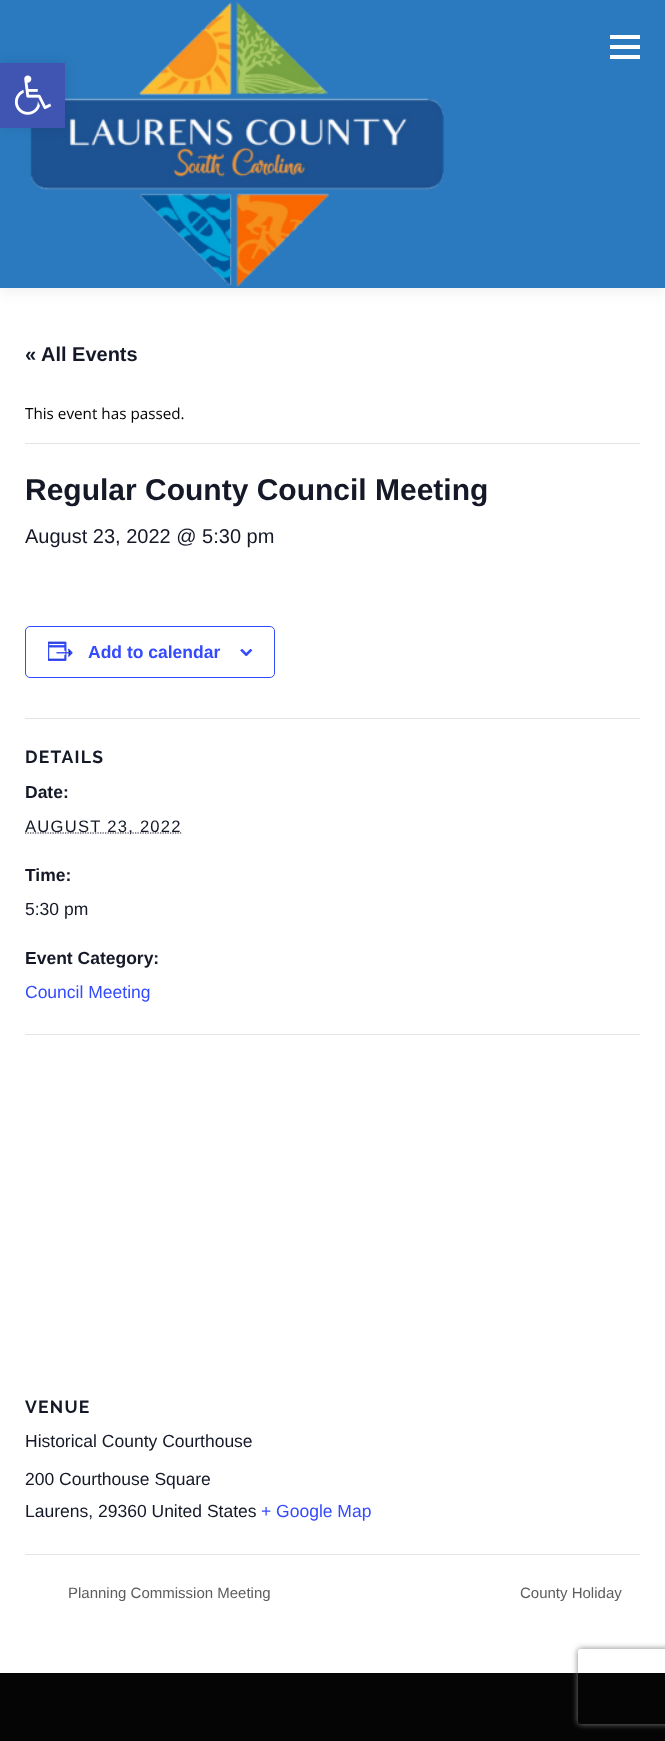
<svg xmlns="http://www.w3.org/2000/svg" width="665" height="1741">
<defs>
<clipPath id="clip1"><path d="M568 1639h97v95h-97zm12.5 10h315c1.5 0 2.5 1 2.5 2.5v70c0 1.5-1 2.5-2.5 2.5h-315c-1.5 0-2.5-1-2.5-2.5v-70c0-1.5 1-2.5 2.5-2.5z" clip-rule="evenodd"/></clipPath>
</defs>
<rect width="100%" height="100%" fill="#fff"/>
<rect y="6" width="665" height="288" fill="#3232320f" filter="blur(6px)"/>
<rect width="665" height="288" fill="#2b7abf"/>
<image x="30" y="2" width="414" height="285" href="media/2.png"/>
<rect y="63" width="65" height="65" fill="#0000001a" filter="blur(6px)"/>
<rect y="63" width="65" height="65" fill="#4054b2"/>
<image x="14" y="75" width="38" height="40" href="media/1.png"/>
<rect x="610" y="45" width="30" height="4" fill="#fff"/>
<rect x="610" y="35" width="30" height="4" fill="#fff"/>
<rect x="610" y="55" width="30" height="4" fill="#fff"/>
<text x="25" y="361" style="font-family:Liberation Sans;font-size:20px;font-weight:bold;fill:#141827">« All Events</text>
<rect x="25" y="443" width="615" height="1" fill="#e4e4e4"/>
<text x="25" y="419" style="font-family:Open Sans;font-size:15.25px;fill:#000">This event has passed.</text>
<text x="25" y="500" style="font-family:Liberation Sans;font-size:30px;font-weight:bold;fill:#141827">Regular County Council Meeting</text>
<text x="25" y="543" style="font-family:Liberation Sans;font-size:20px;fill:#141827">August 23, 2022 @ 5:30 pm</text>
<rect x="25.5" y="626.5" width="249" height="51" rx="4.5" fill="none" stroke="#334aff"/>
<image x="48" y="641" width="25" height="20" href="media/3.png"/>
<text x="88" y="658" style="font-family:Liberation Sans;font-size:17.5px;font-weight:bold;fill:#334aff">Add to calendar</text>
<image x="240" y="649" width="13" height="7" href="media/4.png"/>
<rect x="25" y="718" width="615" height="1" fill="#e4e4e4"/>
<text x="25" y="763" style="font-family:Raleway;font-size:17.5px;font-weight:bold;letter-spacing:1.25px;fill:#141827">DETAILS</text>
<text x="25" y="798" style="font-family:Liberation Sans;font-size:17.5px;font-weight:bold;fill:#141827">Date:</text>
<path d="M25 833h157" fill="none" stroke="#141827" stroke-width="1.2" stroke-dasharray="1.25 1.25"/>
<text x="25" y="832" style="font-family:Liberation Sans;font-size:16.6px;letter-spacing:1.25px;fill:#141827">AUGUST 23, 2022</text>
<text x="25" y="881" style="font-family:Liberation Sans;font-size:17.5px;font-weight:bold;fill:#141827">Time:</text>
<text x="25" y="915" style="font-family:Liberation Sans;font-size:17.5px;fill:#141827">5:30 pm</text>
<text x="25" y="964" style="font-family:Liberation Sans;font-size:17.5px;font-weight:bold;fill:#141827">Event Category:</text>
<text x="25" y="998" style="font-family:Liberation Sans;font-size:17.5px;fill:#334aff">Council Meeting</text>
<rect x="25" y="1034" width="615" height="1" fill="#e4e4e4"/>
<text x="25" y="1413" style="font-family:Raleway;font-size:17.5px;font-weight:bold;letter-spacing:1.25px;fill:#141827">VENUE</text>
<text x="25" y="1447" style="font-family:Liberation Sans;font-size:17.5px;fill:#141827">Historical County Courthouse</text>
<text x="25" y="1485" style="font-family:Liberation Sans;font-size:17.5px;fill:#141827">200 Courthouse Square</text>
<text x="25" y="1517" style="font-family:Liberation Sans;font-size:17.5px;fill:#141827">Laurens, 29360 United States</text>
<text x="261" y="1517" style="font-family:Liberation Sans;font-size:17.5px;fill:#334aff">+ Google Map</text>
<rect x="25" y="1554" width="615" height="1" fill="#e4e4e4"/>
<text x="68" y="1598" style="font-family:Liberation Sans;font-size:15px;fill:#5d5d5d">Planning Commission Meeting</text>
<text x="520" y="1598" style="font-family:Liberation Sans;font-size:15px;fill:#5d5d5d">County Holiday</text>
<rect y="1673" width="665" height="68" fill="#050505"/>
<g clip-path="url(#clip1)">
<rect x="578" y="1649" width="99" height="75" rx="2.5" fill="#808080" filter="blur(3px)"/>
</g>
</svg>
